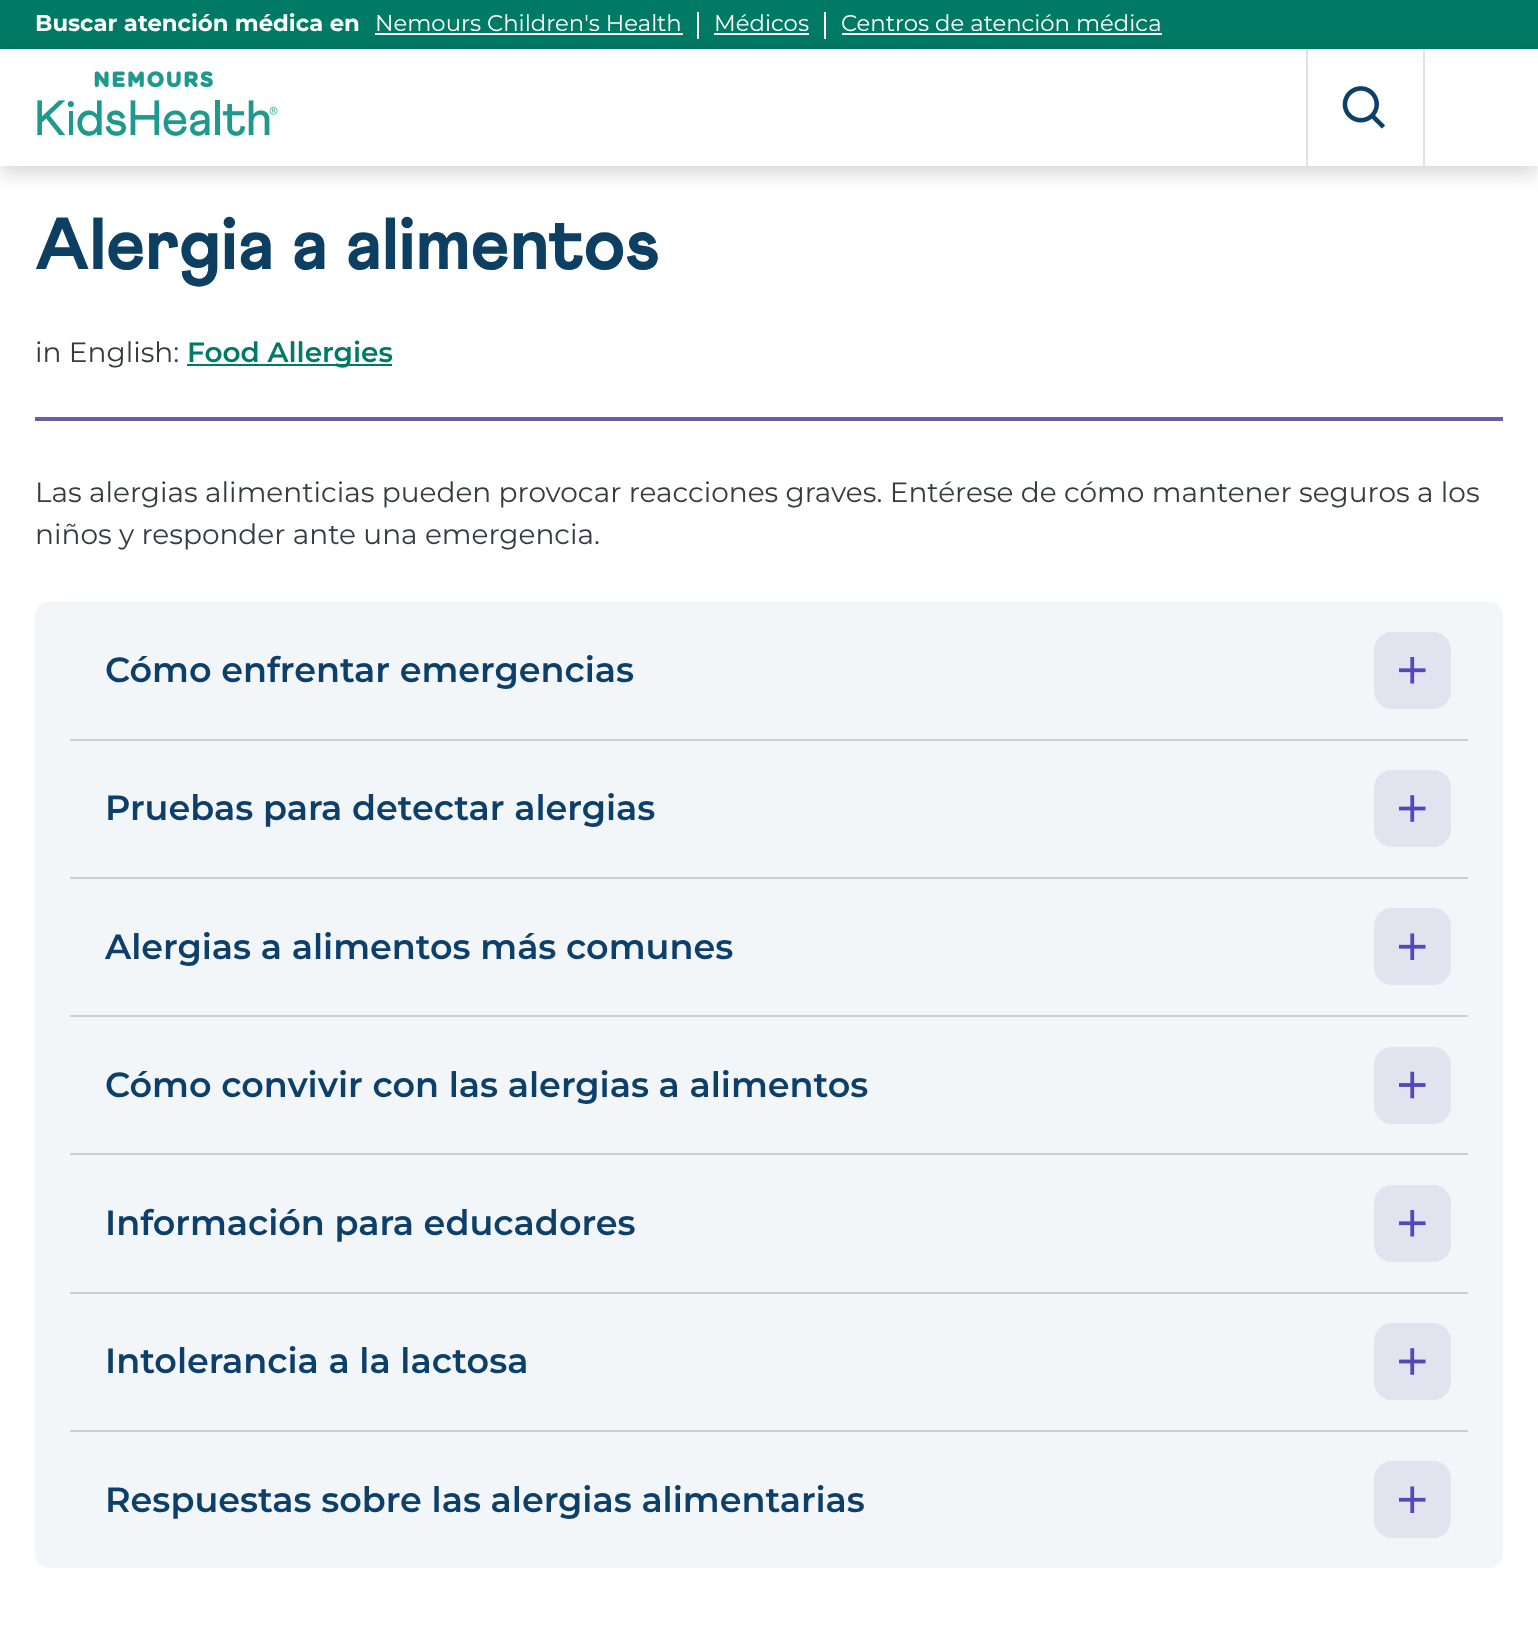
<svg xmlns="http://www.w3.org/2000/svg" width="1538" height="1647">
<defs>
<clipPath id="clip1"><path d="M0 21h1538v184h-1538zm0 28h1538v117h-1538z" clip-rule="evenodd"/></clipPath>
</defs>
<rect width="100%" height="100%" fill="#fff"/>
<rect width="1538" height="49" fill="#007a64"/>
<text x="35" y="31" style="font-family:Montserrat;font-size:22.75px;font-weight:bold;fill:#fff">Buscar atención médica en</text>
<text x="375" y="31" style="font-family:Montserrat;font-size:22.75px;fill:#fff">Nemours Children's Health</text>
<rect x="375" y="33" width="308" height="2" fill="#fff"/>
<rect x="697" y="12" width="2" height="27" fill="#fff"/>
<text x="714" y="31" style="font-family:Montserrat;font-size:22.75px;fill:#fff">Médicos</text>
<rect x="714" y="33" width="95" height="2" fill="#fff"/>
<rect x="824" y="12" width="2" height="27" fill="#fff"/>
<text x="841" y="31" style="font-family:Montserrat;font-size:22.75px;fill:#fff">Centros de atención médica</text>
<rect x="842" y="33" width="320" height="2" fill="#fff"/>
<g clip-path="url(#clip1)">
<rect y="54" width="1538" height="118" fill="#0000002e" filter="blur(10.5px)"/>
</g>
<image x="37" y="71" width="241" height="65" href="media/1.png"/>
<image x="1342" y="86" width="43" height="43" href="media/2.png"/>
<rect x="1306" y="49" width="2" height="117" fill="#e0e2e9"/>
<rect x="1423" y="49" width="2" height="117" fill="#e0e2e9"/>
<rect x="35" y="417" width="1468" height="4" fill="#6660a6"/>
<text x="35" y="269" style="font-family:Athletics;font-size:73.5px;font-weight:800;fill:#0d3f63">Alergia a alimentos</text>
<text x="35" y="362" style="font-family:Montserrat;font-size:28px;fill:#373a41">in English:</text>
<rect x="187" y="364" width="205" height="2" fill="#007a64"/>
<text x="187" y="362" style="font-family:Montserrat;font-size:28px;font-weight:600;fill:#007a64">Food Allergies</text>
<text x="35" y="502" style="font-family:Montserrat;font-size:28px;fill:#373a41">Las alergias alimenticias pueden provocar reacciones graves. Entérese de cómo mantener seguros a los</text>
<text x="35" y="544" style="font-family:Montserrat;font-size:28px;fill:#373a41">niños y responder ante una emergencia.</text>
<rect x="35" y="602" width="1468" height="966" rx="14" fill="#f3f6f9"/>
<text x="105" y="682" style="font-family:Montserrat;font-size:35px;font-weight:600;fill:#0d3f6b">Cómo enfrentar emergencias</text>
<rect x="1374" y="632" width="77" height="77" rx="18" fill="#e1e3ef"/>
<image x="1399" y="657" width="27" height="27" href="media/3.png"/>
<rect x="70" y="739" width="1398" height="2" fill="#cbcdd1"/>
<text x="105" y="820" style="font-family:Montserrat;font-size:35px;font-weight:600;fill:#0d3f6b">Pruebas para detectar alergias</text>
<rect x="1374" y="770" width="77" height="77" rx="18" fill="#e1e3ef"/>
<image x="1399" y="795" width="27" height="27" href="media/4.png"/>
<rect x="70" y="877" width="1398" height="2" fill="#cbcdd1"/>
<text x="105" y="959" style="font-family:Montserrat;font-size:35px;font-weight:600;fill:#0d3f6b">Alergias a alimentos más comunes</text>
<rect x="1374" y="908" width="77" height="77" rx="18" fill="#e1e3ef"/>
<image x="1399" y="933" width="27" height="27" href="media/5.png"/>
<rect x="70" y="1015" width="1398" height="2" fill="#cbcdd1"/>
<text x="105" y="1097" style="font-family:Montserrat;font-size:35px;font-weight:600;fill:#0d3f6b">Cómo convivir con las alergias a alimentos</text>
<rect x="1374" y="1047" width="77" height="77" rx="18" fill="#e1e3ef"/>
<image x="1399" y="1071" width="27" height="28" href="media/6.png"/>
<rect x="70" y="1153" width="1398" height="2" fill="#cbcdd1"/>
<text x="105" y="1235" style="font-family:Montserrat;font-size:35px;font-weight:600;fill:#0d3f6b">Información para educadores</text>
<rect x="1374" y="1185" width="77" height="77" rx="18" fill="#e1e3ef"/>
<image x="1399" y="1210" width="27" height="27" href="media/3.png"/>
<rect x="70" y="1292" width="1398" height="2" fill="#cbcdd1"/>
<text x="105" y="1373" style="font-family:Montserrat;font-size:35px;font-weight:600;fill:#0d3f6b">Intolerancia a la lactosa</text>
<rect x="1374" y="1323" width="77" height="77" rx="18" fill="#e1e3ef"/>
<image x="1399" y="1348" width="27" height="27" href="media/4.png"/>
<rect x="70" y="1430" width="1398" height="2" fill="#cbcdd1"/>
<text x="105" y="1512" style="font-family:Montserrat;font-size:35px;font-weight:600;fill:#0d3f6b">Respuestas sobre las alergias alimentarias</text>
<rect x="1374" y="1461" width="77" height="77" rx="18" fill="#e1e3ef"/>
<image x="1399" y="1486" width="27" height="27" href="media/5.png"/>
</svg>
